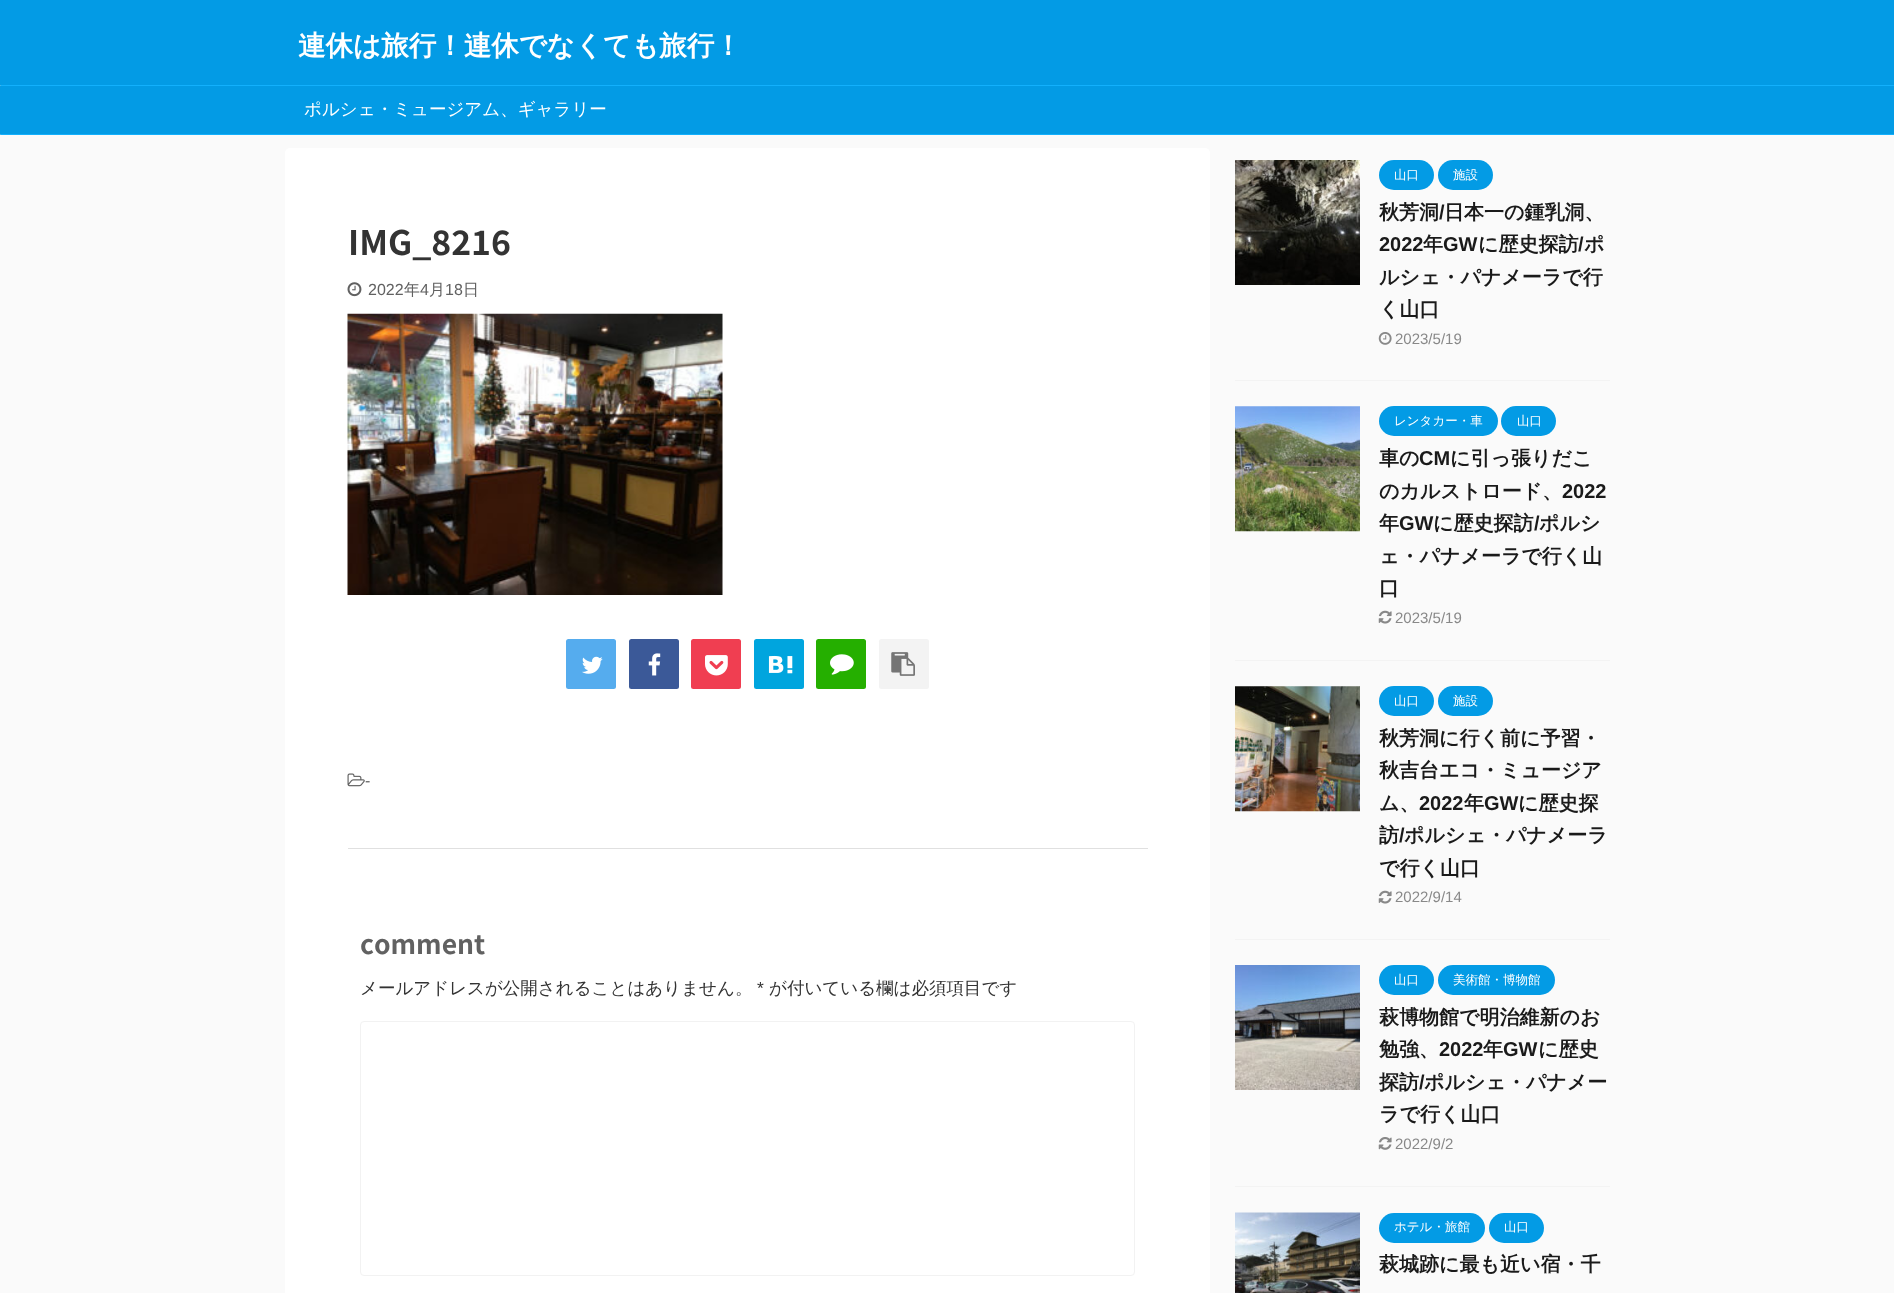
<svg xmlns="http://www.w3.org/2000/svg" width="1894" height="1293">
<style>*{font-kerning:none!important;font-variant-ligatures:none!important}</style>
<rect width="100%" height="100%" fill="#fafafa"/>
<rect width="1894" height="85" fill="#039be5"/>
<text x="298" y="55" style="font-family:WenQuanYi Zen Hei;font-size:27.5px;font-weight:bold;fill:#fff">連休は旅行！連休でなくても旅行！</text>
<rect y="85" width="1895" height="50" rx="1" fill="#039be5"/>
<rect x="1" y="85" width="1893" height="1" fill="#13b0fc"/>
<rect x="1" y="134" width="1893" height="1" fill="#13b0fc"/>
<text x="304" y="115" style="font-family:WenQuanYi Zen Hei;font-size:17.5px;font-weight:500;fill:#fff">ポルシェ・ミュージアム、ギャラリー</text>
<rect x="285" y="148" width="925" height="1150" rx="5" fill="#fff"/>
<text x="348" y="255" style="font-family:Noto Sans JP;font-size:33.75px;font-weight:bold;fill:#333">IMG_8216</text>
<image x="347" y="282" width="15" height="15" href="media/1.png"/>
<text x="368" y="295" style="font-family:Liberation Sans;font-size:16px;fill:#616161">2022</text>
<text x="404" y="295" style="font-family:WenQuanYi Zen Hei;font-size:16px;font-weight:500;fill:#616161">年</text>
<text x="420" y="295" style="font-family:Liberation Sans;font-size:16px;fill:#616161">4</text>
<text x="429" y="295" style="font-family:WenQuanYi Zen Hei;font-size:16px;font-weight:500;fill:#616161">月</text>
<text x="445" y="295" style="font-family:Liberation Sans;font-size:16px;fill:#616161">18</text>
<text x="463" y="295" style="font-family:WenQuanYi Zen Hei;font-size:16px;font-weight:500;fill:#616161">日</text>
<image x="347" y="313" width="376" height="282" href="media/2.png"/>
<rect x="566" y="639" width="50" height="50" rx="2.5" fill="#55acee"/>
<image x="582" y="656" width="21" height="18" href="media/3.png"/>
<rect x="629" y="639" width="50" height="50" rx="2.5" fill="#3b5998"/>
<image x="648" y="653" width="13" height="23" href="media/4.png"/>
<rect x="691" y="639" width="50" height="50" rx="2.5" fill="#f03e51"/>
<image x="705" y="655" width="23" height="21" href="media/5.png"/>
<rect x="754" y="639" width="50" height="50" rx="2.5" fill="#00a5de"/>
<image x="768" y="655" width="25" height="19" href="media/6.png"/>
<rect x="816" y="639" width="50" height="50" rx="2.5" fill="#25af00"/>
<image x="830" y="654" width="24" height="21" href="media/7.png"/>
<rect x="879" y="639" width="50" height="50" rx="2.5" fill="#f3f3f3"/>
<image x="891" y="652" width="24" height="24" href="media/8.png"/>
<image x="347" y="773" width="18" height="14" href="media/9.png"/>
<text x="365" y="786" style="font-family:Liberation Sans;font-size:16px;fill:#616161">-</text>
<rect x="348" y="848" width="800" height="1" fill="#e0e0e0"/>
<text x="360" y="954" style="font-family:Noto Sans JP;font-size:26.5px;font-weight:bold;fill:#616161">comment</text>
<text x="360" y="994" style="font-family:WenQuanYi Zen Hei;font-size:17.5px;font-weight:500;fill:#333">メールアドレスが公開されることはありません。</text>
<text x="757" y="994" style="font-family:Liberation Sans;font-size:17.5px;fill:#333">*</text>
<text x="769" y="994" style="font-family:WenQuanYi Zen Hei;font-size:17.5px;font-weight:500;fill:#333">が付いている欄は必須項目です</text>
<rect x="360.5" y="1021.5" width="774" height="254" rx="3.5" fill="none" stroke="#f2f2f2"/>
<rect x="1235" y="380" width="375" height="1" fill="#f3f3f3"/>
<image x="1235" y="160" width="125" height="125" href="media/10.png"/>
<rect x="1379" y="160" width="55" height="30" rx="15" fill="#039be5"/>
<text x="1394" y="179" style="font-family:WenQuanYi Zen Hei;font-size:12.5px;font-weight:500;fill:#fff">山口</text>
<rect x="1438" y="160" width="55" height="30" rx="15" fill="#039be5"/>
<text x="1453" y="179" style="font-family:WenQuanYi Zen Hei;font-size:12.5px;font-weight:500;fill:#fff">施設</text>
<text x="1379" y="219" style="font-family:WenQuanYi Zen Hei;font-size:20px;font-weight:bold;fill:#1a1a1a">秋芳洞</text>
<text x="1439" y="219" style="font-family:Liberation Sans;font-size:20px;font-weight:bold;fill:#1a1a1a">/</text>
<text x="1444" y="219" style="font-family:WenQuanYi Zen Hei;font-size:20px;font-weight:bold;fill:#1a1a1a">日本一の鍾乳洞、</text>
<text x="1379" y="251" style="font-family:Liberation Sans;font-size:20px;font-weight:bold;fill:#1a1a1a">2022</text>
<text x="1423" y="251" style="font-family:WenQuanYi Zen Hei;font-size:20px;font-weight:bold;fill:#1a1a1a">年</text>
<text x="1443" y="251" style="font-family:Liberation Sans;font-size:20px;font-weight:bold;fill:#1a1a1a">GW</text>
<text x="1478" y="251" style="font-family:WenQuanYi Zen Hei;font-size:20px;font-weight:bold;fill:#1a1a1a">に歴史探訪</text>
<text x="1578" y="251" style="font-family:Liberation Sans;font-size:20px;font-weight:bold;fill:#1a1a1a">/</text>
<text x="1584" y="251" style="font-family:WenQuanYi Zen Hei;font-size:20px;font-weight:bold;fill:#1a1a1a">ポ</text>
<text x="1379" y="284" style="font-family:WenQuanYi Zen Hei;font-size:20px;font-weight:bold;fill:#1a1a1a">ルシェ・パナメーラで行</text>
<text x="1379" y="316" style="font-family:WenQuanYi Zen Hei;font-size:20px;font-weight:bold;fill:#1a1a1a">く山口</text>
<image x="1378" y="332" width="14" height="13" href="media/11.png"/>
<text x="1395" y="344" style="font-family:Liberation Sans;font-size:15px;fill:#888">2023/5/19</text>
<rect x="1235" y="660" width="375" height="1" fill="#f3f3f3"/>
<image x="1235" y="406" width="125" height="126" href="media/12.png"/>
<rect x="1379" y="406" width="119" height="30" rx="15" fill="#039be5"/>
<text x="1394" y="425" style="font-family:WenQuanYi Zen Hei;font-size:12.5px;font-weight:500;fill:#fff">レンタカー・車</text>
<rect x="1501" y="406" width="55" height="30" rx="15" fill="#039be5"/>
<text x="1517" y="425" style="font-family:WenQuanYi Zen Hei;font-size:12.5px;font-weight:500;fill:#fff">山口</text>
<text x="1379" y="465" style="font-family:WenQuanYi Zen Hei;font-size:20px;font-weight:bold;fill:#1a1a1a">車の</text>
<text x="1419" y="465" style="font-family:Liberation Sans;font-size:20px;font-weight:bold;fill:#1a1a1a">CM</text>
<text x="1450" y="465" style="font-family:WenQuanYi Zen Hei;font-size:20px;font-weight:bold;fill:#1a1a1a">に引っ張りだこ</text>
<text x="1379" y="498" style="font-family:WenQuanYi Zen Hei;font-size:20px;font-weight:bold;fill:#1a1a1a">のカルストロード、</text>
<text x="1562" y="498" style="font-family:Liberation Sans;font-size:20px;font-weight:bold;fill:#1a1a1a">2022</text>
<text x="1379" y="530" style="font-family:WenQuanYi Zen Hei;font-size:20px;font-weight:bold;fill:#1a1a1a">年</text>
<text x="1399" y="530" style="font-family:Liberation Sans;font-size:20px;font-weight:bold;fill:#1a1a1a">GW</text>
<text x="1433" y="530" style="font-family:WenQuanYi Zen Hei;font-size:20px;font-weight:bold;fill:#1a1a1a">に歴史探訪</text>
<text x="1534" y="530" style="font-family:Liberation Sans;font-size:20px;font-weight:bold;fill:#1a1a1a">/</text>
<text x="1539" y="530" style="font-family:WenQuanYi Zen Hei;font-size:20px;font-weight:bold;fill:#1a1a1a">ポルシ</text>
<text x="1379" y="563" style="font-family:WenQuanYi Zen Hei;font-size:20px;font-weight:bold;fill:#1a1a1a">ェ・パナメーラで行く山</text>
<text x="1379" y="595" style="font-family:WenQuanYi Zen Hei;font-size:20px;font-weight:bold;fill:#1a1a1a">口</text>
<image x="1378" y="610" width="14" height="14" href="media/13.png"/>
<text x="1395" y="623" style="font-family:Liberation Sans;font-size:15px;fill:#888">2023/5/19</text>
<rect x="1235" y="939" width="375" height="1" fill="#f3f3f3"/>
<image x="1235" y="686" width="125" height="126" href="media/14.png"/>
<rect x="1379" y="686" width="55" height="30" rx="15" fill="#039be5"/>
<text x="1394" y="705" style="font-family:WenQuanYi Zen Hei;font-size:12.5px;font-weight:500;fill:#fff">山口</text>
<rect x="1438" y="686" width="55" height="30" rx="15" fill="#039be5"/>
<text x="1453" y="705" style="font-family:WenQuanYi Zen Hei;font-size:12.5px;font-weight:500;fill:#fff">施設</text>
<text x="1379" y="745" style="font-family:WenQuanYi Zen Hei;font-size:20px;font-weight:bold;fill:#1a1a1a">秋芳洞に行く前に予習・</text>
<text x="1379" y="777" style="font-family:WenQuanYi Zen Hei;font-size:20px;font-weight:bold;fill:#1a1a1a">秋吉台エコ・ミュージア</text>
<text x="1379" y="810" style="font-family:WenQuanYi Zen Hei;font-size:20px;font-weight:bold;fill:#1a1a1a">ム、</text>
<text x="1419" y="810" style="font-family:Liberation Sans;font-size:20px;font-weight:bold;fill:#1a1a1a">2022</text>
<text x="1464" y="810" style="font-family:WenQuanYi Zen Hei;font-size:20px;font-weight:bold;fill:#1a1a1a">年</text>
<text x="1484" y="810" style="font-family:Liberation Sans;font-size:20px;font-weight:bold;fill:#1a1a1a">GW</text>
<text x="1518" y="810" style="font-family:WenQuanYi Zen Hei;font-size:20px;font-weight:bold;fill:#1a1a1a">に歴史探</text>
<text x="1379" y="842" style="font-family:WenQuanYi Zen Hei;font-size:20px;font-weight:bold;fill:#1a1a1a">訪</text>
<text x="1399" y="842" style="font-family:Liberation Sans;font-size:20px;font-weight:bold;fill:#1a1a1a">/</text>
<text x="1404" y="842" style="font-family:WenQuanYi Zen Hei;font-size:20px;font-weight:bold;fill:#1a1a1a">ポルシェ・パナメーラ</text>
<text x="1379" y="875" style="font-family:WenQuanYi Zen Hei;font-size:20px;font-weight:bold;fill:#1a1a1a">で行く山口</text>
<image x="1378" y="890" width="14" height="14" href="media/13.png"/>
<text x="1395" y="902" style="font-family:Liberation Sans;font-size:15px;fill:#888">2022/9/14</text>
<rect x="1235" y="1186" width="375" height="1" fill="#f3f3f3"/>
<image x="1235" y="965" width="125" height="125" href="media/15.png"/>
<rect x="1379" y="965" width="55" height="30" rx="15" fill="#039be5"/>
<text x="1394" y="984" style="font-family:WenQuanYi Zen Hei;font-size:12.5px;font-weight:500;fill:#fff">山口</text>
<rect x="1438" y="965" width="117" height="30" rx="15" fill="#039be5"/>
<text x="1453" y="984" style="font-family:WenQuanYi Zen Hei;font-size:12.5px;font-weight:500;fill:#fff">美術館・博物館</text>
<text x="1379" y="1024" style="font-family:WenQuanYi Zen Hei;font-size:20px;font-weight:bold;fill:#1a1a1a">萩博物館で明治維新のお</text>
<text x="1379" y="1056" style="font-family:WenQuanYi Zen Hei;font-size:20px;font-weight:bold;fill:#1a1a1a">勉強、</text>
<text x="1439" y="1056" style="font-family:Liberation Sans;font-size:20px;font-weight:bold;fill:#1a1a1a">2022</text>
<text x="1483" y="1056" style="font-family:WenQuanYi Zen Hei;font-size:20px;font-weight:bold;fill:#1a1a1a">年</text>
<text x="1503" y="1056" style="font-family:Liberation Sans;font-size:20px;font-weight:bold;fill:#1a1a1a">GW</text>
<text x="1538" y="1056" style="font-family:WenQuanYi Zen Hei;font-size:20px;font-weight:bold;fill:#1a1a1a">に歴史</text>
<text x="1379" y="1089" style="font-family:WenQuanYi Zen Hei;font-size:20px;font-weight:bold;fill:#1a1a1a">探訪</text>
<text x="1419" y="1089" style="font-family:Liberation Sans;font-size:20px;font-weight:bold;fill:#1a1a1a">/</text>
<text x="1424" y="1089" style="font-family:WenQuanYi Zen Hei;font-size:20px;font-weight:bold;fill:#1a1a1a">ポルシェ・パナメー</text>
<text x="1379" y="1121" style="font-family:WenQuanYi Zen Hei;font-size:20px;font-weight:bold;fill:#1a1a1a">ラで行く山口</text>
<image x="1378" y="1137" width="14" height="13" href="media/16.png"/>
<text x="1395" y="1149" style="font-family:Liberation Sans;font-size:15px;fill:#888">2022/9/2</text>
<image x="1235" y="1212" width="125" height="81" href="media/17.png"/>
<rect x="1379" y="1213" width="106" height="30" rx="15" fill="#039be5"/>
<text x="1394" y="1231" style="font-family:WenQuanYi Zen Hei;font-size:12.5px;font-weight:500;fill:#fff">ホテル・旅館</text>
<rect x="1489" y="1213" width="55" height="30" rx="15" fill="#039be5"/>
<text x="1504" y="1231" style="font-family:WenQuanYi Zen Hei;font-size:12.5px;font-weight:500;fill:#fff">山口</text>
<text x="1379" y="1271" style="font-family:WenQuanYi Zen Hei;font-size:20px;font-weight:bold;fill:#1a1a1a">萩城跡に最も近い宿・千</text>
</svg>
